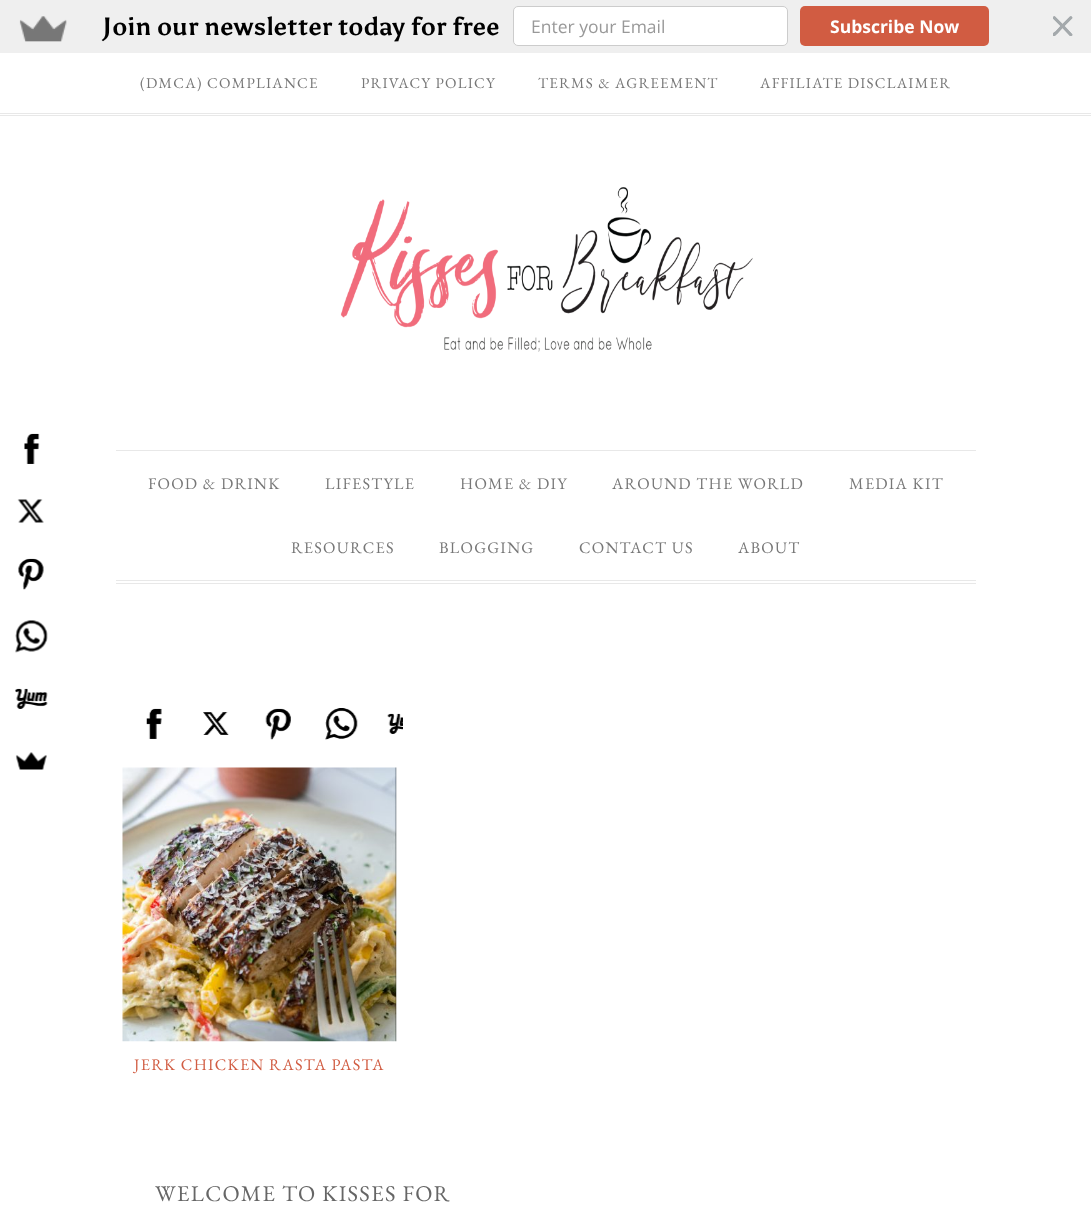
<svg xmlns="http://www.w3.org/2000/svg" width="1091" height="1209">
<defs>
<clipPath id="clip1"><rect x="1053" y="16" width="20" height="20"/></clipPath>
</defs>
<rect width="100%" height="100%" fill="#fff"/>
<rect width="1091" height="53" fill="#efefef"/>
<image x="19" y="16" width="48" height="26" href="media/1.png"/>
<text x="102" y="35" style="font-family:Asul;font-size:25px;font-weight:bold;fill:#000">Join our newsletter today for free</text>
<rect x="513.5" y="6.5" width="274" height="39" rx="4.5" fill="#fff" stroke="#ccc"/>
<text x="531" y="33" style="font-family:Open Sans;font-size:17.5px;fill:#999">Enter your Email</text>
<rect x="800" y="6" width="189" height="40" rx="5" fill="#d15c42"/>
<text x="830" y="33" style="font-family:Open Sans;font-size:17.5px;font-weight:bold;fill:#fff">Subscribe Now</text>
<g clip-path="url(#clip1)">
<path d="M1062.5 24l-7.5-7.5c-.5-.5-1.5 0-2 .5c-.5 .5-.5 1 0 1.5l7.5 7.5l-5 5.5c-1 .5-4.5 3-2.5 4.5c1.5 1.5 3.5-2 4.5-2.5l5-5.5l7.5 8c.5 0 1.5 0 2-.5c.5-.5 .5-1 0-1.5l-7.5-8l7.5-7.5c1-1.5-1-2.5-2-2z" fill="#a4a9ac"/>
<path d="M1062.5 24l7.5-7.5c.5 0 1.5 0 2 .5c.5 .5 .5 1 0 1.5l-7.5 7.5l7.5 8c.5 .5 .5 1 0 1.5c-.5 .5-1.5 .5-2 .5l-7.5-8l-5 5.5c-1 .5-3.5 4.5-5 2.5c-1-2 2-4 3-4.5l5-5.5l-7.5-7.5c-.5-.5-.5-1 0-1.5c.5-.5 1.5-1 2-.5z" fill="#a4a9ac"/>
</g>
<rect y="113" width="1091" height="1" fill="#e8e8e8"/>
<rect y="115" width="1091" height="1" fill="#e8e8e8"/>
<text x="140" y="88" style="font-family:EB Garamond;font-size:15px;letter-spacing:1.25px;fill:#777">(DMCA) COMPLIANCE</text>
<text x="361" y="88" style="font-family:EB Garamond;font-size:15px;letter-spacing:1.25px;fill:#777">PRIVACY POLICY</text>
<text x="538" y="88" style="font-family:EB Garamond;font-size:15px;letter-spacing:1.25px;fill:#777">TERMS &amp; AGREEMENT</text>
<text x="760" y="88" style="font-family:EB Garamond;font-size:15px;letter-spacing:1.25px;fill:#777">AFFILIATE DISCLAIMER</text>
<image x="24" y="433" width="16" height="31" href="media/2.png"/>
<image x="17" y="499" width="27" height="24" href="media/3.png"/>
<image x="18" y="558" width="26" height="32" href="media/4.png"/>
<image x="15" y="620" width="33" height="33" href="media/5.png"/>
<image x="15" y="688" width="33" height="21" href="media/6.png"/>
<image x="15" y="752" width="32" height="18" href="media/7.png"/>
<rect x="116" y="450" width="860" height="1" fill="#e8e8e8"/>
<image x="340" y="187" width="413" height="165" href="media/8.png"/>
<rect x="116" y="580" width="860" height="1" fill="#e8e8e8"/>
<rect x="116" y="583" width="860" height="1" fill="#e8e8e8"/>
<text x="148" y="489" style="font-family:EB Garamond;font-size:16.25px;letter-spacing:1.25px;fill:#777">FOOD &amp; DRINK</text>
<text x="325" y="489" style="font-family:EB Garamond;font-size:16.25px;letter-spacing:1.25px;fill:#777">LIFESTYLE</text>
<text x="460" y="489" style="font-family:EB Garamond;font-size:16.25px;letter-spacing:1.25px;fill:#777">HOME &amp; DIY</text>
<text x="612" y="489" style="font-family:EB Garamond;font-size:16.25px;letter-spacing:1.25px;fill:#777">AROUND THE WORLD</text>
<text x="849" y="489" style="font-family:EB Garamond;font-size:16.25px;letter-spacing:1.25px;fill:#777">MEDIA KIT</text>
<text x="291" y="553" style="font-family:EB Garamond;font-size:16.25px;letter-spacing:1.25px;fill:#777">RESOURCES</text>
<text x="439" y="553" style="font-family:EB Garamond;font-size:16.25px;letter-spacing:1.25px;fill:#777">BLOGGING</text>
<text x="579" y="553" style="font-family:EB Garamond;font-size:16.25px;letter-spacing:1.25px;fill:#777">CONTACT US</text>
<text x="738" y="553" style="font-family:EB Garamond;font-size:16.25px;letter-spacing:1.25px;fill:#777">ABOUT</text>
<image x="146" y="708" width="16" height="31" href="media/9.png"/>
<image x="203" y="712" width="26" height="23" href="media/10.png"/>
<image x="265" y="708" width="26" height="32" href="media/11.png"/>
<image x="325" y="708" width="33" height="32" href="media/12.png"/>
<image x="387" y="713" width="16" height="21" href="media/13.png"/>
<image x="122" y="767" width="275" height="275" href="media/14.png"/>
<text x="134" y="1070" style="font-family:EB Garamond;font-size:16.25px;letter-spacing:1.25px;fill:#d15c42">JERK CHICKEN RASTA PASTA</text>
<text x="155" y="1201" style="font-family:EB Garamond;font-size:22.5px;letter-spacing:1.25px;fill:#666">WELCOME TO KISSES FOR</text>
</svg>
